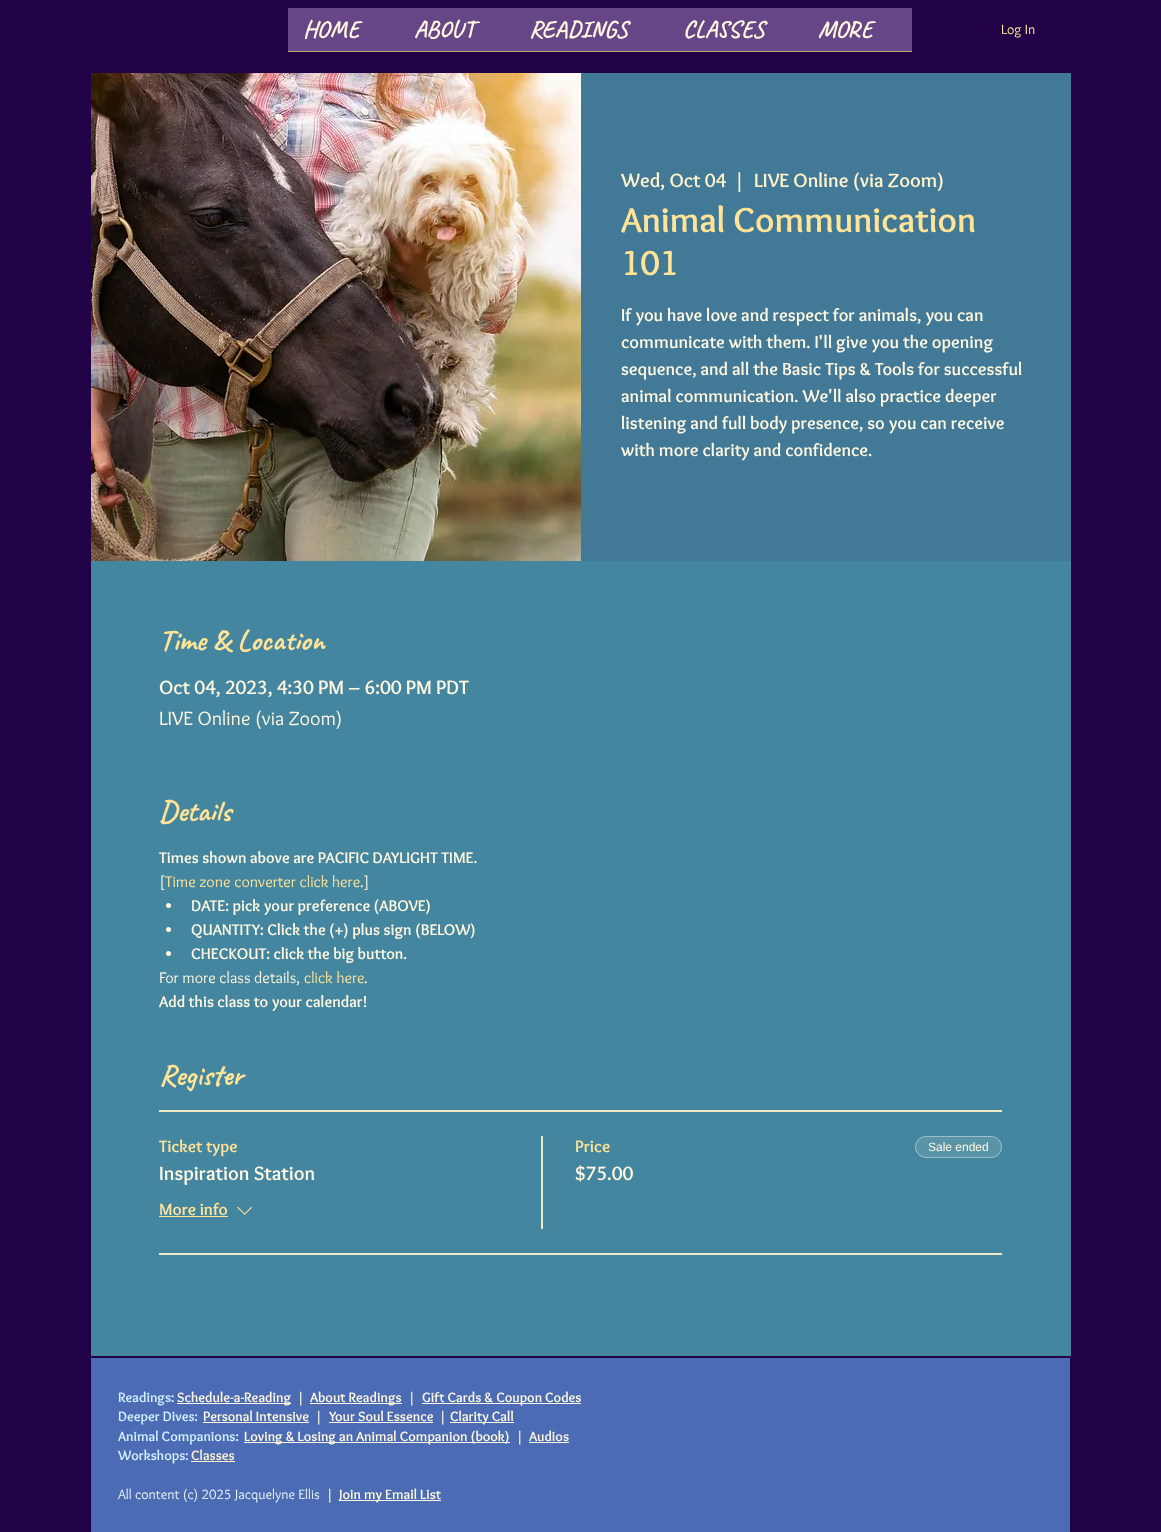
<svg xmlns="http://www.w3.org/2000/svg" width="1161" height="1532">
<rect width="100%" height="100%" fill="#220246"/>
<rect x="288" y="8" width="624" height="43" fill="#664687"/>
<rect x="288" y="51" width="624" height="1" fill="#bfab71"/>
<text x="303" y="37" style="font-family:Caveat;font-size:24px;font-weight:bold;fill:#fff7e0">HOME</text>
<text x="414" y="37" style="font-family:Caveat;font-size:24px;font-weight:bold;fill:#fff7e0">ABOUT</text>
<text x="529" y="37" style="font-family:Caveat;font-size:24px;font-weight:bold;fill:#fff7e0">READINGS</text>
<text x="683" y="37" style="font-family:Caveat;font-size:24px;font-weight:bold;fill:#fff7e0">CLASSES</text>
<text x="818" y="37" style="font-family:Caveat;font-size:24px;font-weight:bold;fill:#fff7e0">MORE</text>
<text x="1001" y="34" style="font-family:Overlock;font-size:14px;fill:#ffe497">Log In</text>
<image x="91" y="73" width="490" height="488" href="media/1.png"/>
<rect x="581" y="73" width="490" height="488" fill="#417997"/>
<text x="621" y="187" style="font-family:Overlock;font-size:20px;font-weight:bold;fill:#fff2cc">Wed, Oct 04</text>
<text x="734" y="187" style="font-family:Overlock;font-size:20px;font-weight:bold;fill:#fff2cc">|</text>
<text x="754" y="187" style="font-family:Overlock;font-size:20px;font-weight:bold;fill:#fff2cc">LIVE Online (via Zoom)</text>
<text x="621" y="232" style="font-family:Overlock;font-size:36px;font-weight:bold;fill:#ffe497">Animal Communication</text>
<text x="621" y="275" style="font-family:Overlock;font-size:36px;font-weight:bold;fill:#ffe497">101</text>
<text x="621" y="321" style="font-family:Overlock;font-size:18px;font-weight:bold;fill:#fff7e0">If you have love and respect for animals, you can</text>
<text x="621" y="348" style="font-family:Overlock;font-size:18px;font-weight:bold;fill:#fff7e0">communicate with them. I'll give you the opening</text>
<text x="621" y="375" style="font-family:Overlock;font-size:18px;font-weight:bold;fill:#fff7e0">sequence, and all the Basic Tips &amp; Tools for successful</text>
<text x="621" y="402" style="font-family:Overlock;font-size:18px;font-weight:bold;fill:#fff7e0">animal communication. We'll also practice deeper</text>
<text x="621" y="429" style="font-family:Overlock;font-size:18px;font-weight:bold;fill:#fff7e0">listening and full body presence, so you can receive</text>
<text x="621" y="456" style="font-family:Overlock;font-size:18px;font-weight:bold;fill:#fff7e0">with more clarity and confidence.</text>
<rect x="91" y="561" width="980" height="795" fill="#4486a0"/>
<text x="159" y="650" style="font-family:Caveat;font-size:30px;font-weight:bold;fill:#ffe497">Time &amp; Location</text>
<text x="159" y="694" style="font-family:Overlock;font-size:20px;font-weight:bold;fill:#fff7e0">Oct 04, 2023, 4:30 PM – 6:00 PM PDT</text>
<text x="159" y="725" style="font-family:Overlock;font-size:20px;fill:#fff7e0">LIVE Online (via Zoom)</text>
<text x="159" y="821" style="font-family:Caveat;font-size:30px;font-weight:bold;fill:#ffe497">Details</text>
<text x="159" y="863" style="font-family:Overlock;font-size:16px;font-weight:bold;fill:#fff7e0">Times shown above are PACIFIC DAYLIGHT TIME.</text>
<text x="159" y="887" style="font-family:Overlock;font-size:16px;fill:#fff7e0">[</text>
<text x="165" y="887" style="font-family:Overlock;font-size:16px;fill:#ffe497">Time zone converter click here</text>
<text x="360" y="887" style="font-family:Overlock;font-size:16px;fill:#fff7e0">.]</text>
<circle cx="168.5" cy="905.5" r="2.5" fill="#fff7e0"/>
<text x="191" y="911" style="font-family:Overlock;font-size:16px;font-weight:bold;fill:#fff7e0">DATE: pick your preference (ABOVE)</text>
<circle cx="168.5" cy="929.5" r="2.5" fill="#fff7e0"/>
<text x="191" y="935" style="font-family:Overlock;font-size:16px;font-weight:bold;fill:#fff7e0">QUANTITY: Click the (+) plus sign (BELOW)</text>
<circle cx="168.5" cy="953.5" r="2.5" fill="#fff7e0"/>
<text x="191" y="959" style="font-family:Overlock;font-size:16px;font-weight:bold;fill:#fff7e0">CHECKOUT: click the big button.</text>
<text x="159" y="983" style="font-family:Overlock;font-size:16px;fill:#fff7e0">For more class details,</text>
<text x="304" y="983" style="font-family:Overlock;font-size:16px;fill:#ffe497">click here</text>
<text x="364" y="983" style="font-family:Overlock;font-size:16px;fill:#fff7e0">.</text>
<text x="159" y="1007" style="font-family:Overlock;font-size:16px;font-weight:bold;fill:#fff7e0">Add this class to your calendar!</text>
<text x="159" y="1085" style="font-family:Caveat;font-size:30px;font-weight:bold;fill:#ffe497">Register</text>
<rect x="159" y="1110" width="843" height="2" fill="#f0e9c8"/>
<rect x="159" y="1253" width="843" height="2" fill="#f0e9c8"/>
<text x="159" y="1152" style="font-family:Overlock;font-size:17px;font-weight:bold;fill:#ffe497">Ticket type</text>
<text x="159" y="1180" style="font-family:Overlock;font-size:20px;font-weight:bold;fill:#fff7e0">Inspiration Station</text>
<text x="159" y="1215" style="font-family:Overlock;font-size:17px;font-weight:bold;fill:#ffe497">More info</text>
<rect x="159" y="1216" width="69" height="1" fill="#ffe497"/>
<image x="237" y="1206" width="16" height="9" href="media/2.png"/>
<rect x="541" y="1136" width="2" height="93" fill="#f0e9c8"/>
<text x="575" y="1152" style="font-family:Overlock;font-size:17px;font-weight:bold;fill:#ffe497">Price</text>
<text x="575" y="1180" style="font-family:Overlock;font-size:20px;font-weight:bold;fill:#fff7e0">$75.00</text>
<rect x="915" y="1136" width="87" height="22" rx="11" fill="#5a94a8"/>
<rect x="915.5" y="1136.5" width="86" height="21" rx="10.5" fill="none" stroke="#ffffff66"/>
<text x="928" y="1151" style="font-family:Liberation Sans;font-size:12px;fill:#fff7e0">Sale ended</text>
<rect x="91" y="1358" width="979" height="174" fill="#4b6cb4"/>
<text x="118" y="1402" style="font-family:Overlock;font-size:14px;font-weight:bold;fill:#d4efff">Readings:</text>
<rect x="177" y="1403" width="114" height="1" fill="#fff7e0"/>
<text x="177" y="1402" style="font-family:Overlock;font-size:14px;font-weight:bold;fill:#fff7e0">Schedule-a-Reading</text>
<text x="297" y="1402" style="font-family:Overlock;font-size:14px;font-weight:bold;fill:#fff7e0">|</text>
<rect x="310" y="1403" width="92" height="1" fill="#fff7e0"/>
<text x="310" y="1402" style="font-family:Overlock;font-size:14px;font-weight:bold;fill:#fff7e0">About Readings</text>
<text x="408" y="1402" style="font-family:Overlock;font-size:14px;font-weight:bold;fill:#fff7e0">|</text>
<rect x="422" y="1403" width="159" height="1" fill="#fff7e0"/>
<text x="422" y="1402" style="font-family:Overlock;font-size:14px;font-weight:bold;fill:#fff7e0">Gift Cards &amp; Coupon Codes</text>
<text x="118" y="1421" style="font-family:Overlock;font-size:14px;font-weight:bold;fill:#d4efff">Deeper Dives:</text>
<text x="203" y="1421" style="font-family:Overlock;font-size:14px;font-weight:bold;fill:#fff7e0">Personal Intensive</text>
<rect x="203" y="1422" width="106" height="1" fill="#fff7e0"/>
<text x="315" y="1421" style="font-family:Overlock;font-size:14px;font-weight:bold;fill:#fff7e0">|</text>
<text x="329" y="1421" style="font-family:Overlock;font-size:14px;font-weight:bold;fill:#fff7e0">Your Soul Essence</text>
<rect x="329" y="1422" width="104" height="1" fill="#fff7e0"/>
<text x="439" y="1421" style="font-family:Overlock;font-size:14px;font-weight:bold;fill:#fff7e0">|</text>
<rect x="450" y="1422" width="64" height="1" fill="#fff7e0"/>
<text x="450" y="1421" style="font-family:Overlock;font-size:14px;font-weight:bold;fill:#fff7e0">Clarity Call</text>
<text x="118" y="1441" style="font-family:Overlock;font-size:14px;font-weight:bold;fill:#d4efff">Animal Companions:</text>
<rect x="244" y="1442" width="266" height="1" fill="#fff7e0"/>
<text x="244" y="1441" style="font-family:Overlock;font-size:14px;font-weight:bold;fill:#fff7e0">Loving &amp; Losing an Animal Companion (book)</text>
<text x="516" y="1441" style="font-family:Overlock;font-size:14px;font-weight:bold;fill:#fff7e0">|</text>
<text x="529" y="1441" style="font-family:Overlock;font-size:14px;font-weight:bold;fill:#fff7e0">Audios</text>
<rect x="529" y="1442" width="40" height="1" fill="#fff7e0"/>
<text x="118" y="1460" style="font-family:Overlock;font-size:14px;font-weight:bold;fill:#d4efff">Workshops:</text>
<rect x="191" y="1461" width="44" height="1" fill="#fff2cc"/>
<text x="191" y="1460" style="font-family:Overlock;font-size:14px;font-weight:bold;fill:#fff2cc">Classes</text>
<text x="118" y="1499" style="font-family:Overlock;font-size:14px;fill:#eaf4f6">All content (c) 2025 Jacquelyne Ellis</text>
<text x="326" y="1499" style="font-family:Overlock;font-size:14px;font-weight:bold;fill:#fff7e0">|</text>
<rect x="339" y="1500" width="102" height="1" fill="#fff7e0"/>
<text x="339" y="1499" style="font-family:Overlock;font-size:14px;font-weight:bold;fill:#fff7e0">Join my Email List</text>
</svg>
